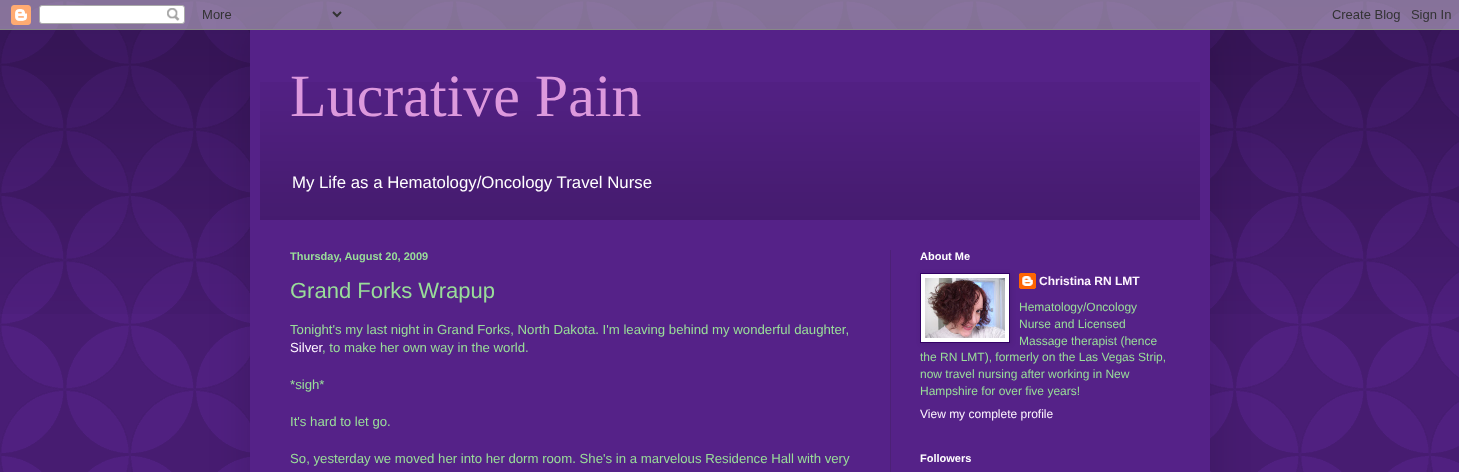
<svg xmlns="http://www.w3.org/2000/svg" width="1459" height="472">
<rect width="100%" height="100%" fill="#528"/>
<image x="0" y="0" width="1459" height="472" href="media/1.png"/>
<image x="0" y="0" width="1459" height="314" href="media/2.png"/>
<rect x="250" y="30" width="960" height="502" fill="#00000026" filter="blur(20px)"/>
<image x="0" y="0" width="1459" height="30" href="media/3.png"/>
<rect x="250" y="30" width="960" height="442" fill="#528"/>
<image x="260" y="82" width="940" height="138" href="media/4.png"/>
<text x="290" y="116" style="font-family:Liberation Serif;font-size:60px;fill:#d9d">Lucrative Pain</text>
<text x="292" y="188" style="font-family:Liberation Sans;font-size:16.8px;fill:#fff">My Life as a Hematology/Oncology Travel Nurse</text>
<rect x="890" y="250" width="1" height="222" fill="#4c2176"/>
<text x="290" y="260" style="font-family:Liberation Sans;font-size:11px;font-weight:bold;fill:#9d9">Thursday, August 20, 2009</text>
<text x="290" y="298" style="font-family:Liberation Sans;font-size:22px;fill:#9d9">Grand Forks Wrapup</text>
<text x="290" y="334" style="font-family:Liberation Sans;font-size:13.2px;fill:#9d9">Tonight's my last night in Grand Forks, North Dakota. I'm leaving behind my wonderful daughter,</text>
<text x="290" y="352" style="font-family:Liberation Sans;font-size:13.2px;fill:#fef6ff">Silver</text>
<text x="322" y="352" style="font-family:Liberation Sans;font-size:13.2px;fill:#9d9">, to make her own way in the world.</text>
<text x="290" y="389" style="font-family:Liberation Sans;font-size:13.2px;fill:#9d9">*sigh*</text>
<text x="290" y="426" style="font-family:Liberation Sans;font-size:13.2px;fill:#9d9">It's hard to let go.</text>
<text x="290" y="463" style="font-family:Liberation Sans;font-size:13.2px;fill:#9d9">So, yesterday we moved her into her dorm room. She's in a marvelous Residence Hall with very</text>
<text x="920" y="260" style="font-family:Liberation Sans;font-size:11px;font-weight:bold;fill:#fff">About Me</text>
<image x="1019" y="273" width="17" height="16" href="media/6.png"/>
<rect x="921" y="274" width="90" height="70" fill="#0000001a" filter="blur(2.5px)"/>
<rect x="920.5" y="273.5" width="89" height="69" fill="#fff" stroke="#306"/>
<image x="925" y="278" width="80" height="60" href="media/5.png"/>
<text x="1039" y="285" style="font-family:Liberation Sans;font-size:12px;font-weight:bold;fill:#fef6ff">Christina RN LMT</text>
<text x="1019" y="311" style="font-family:Liberation Sans;font-size:12px;fill:#9d9">Hematology/Oncology</text>
<text x="1019" y="328" style="font-family:Liberation Sans;font-size:12px;fill:#9d9">Nurse and Licensed</text>
<text x="1019" y="345" style="font-family:Liberation Sans;font-size:12px;fill:#9d9">Massage therapist (hence</text>
<text x="920" y="361" style="font-family:Liberation Sans;font-size:12px;fill:#9d9">the RN LMT), formerly on the Las Vegas Strip,</text>
<text x="920" y="378" style="font-family:Liberation Sans;font-size:12px;fill:#9d9">now travel nursing after working in New</text>
<text x="920" y="395" style="font-family:Liberation Sans;font-size:12px;fill:#9d9">Hampshire for over five years!</text>
<text x="920" y="418" style="font-family:Liberation Sans;font-size:12px;fill:#fef6ff">View my complete profile</text>
<text x="920" y="462" style="font-family:Liberation Sans;font-size:11px;font-weight:bold;fill:#fff">Followers</text>
</svg>
